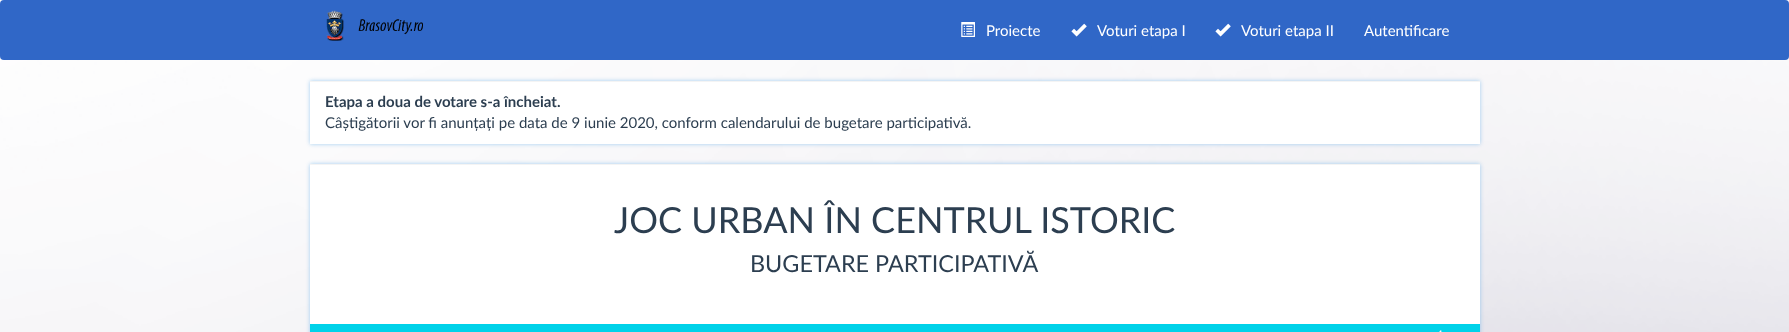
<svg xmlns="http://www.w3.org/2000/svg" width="1789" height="332">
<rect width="100%" height="100%" fill="#fff"/>
<image x="0" y="0" width="1789" height="332" href="media/1.png"/>
<rect width="1789" height="60" rx="4" fill="#3067c7"/>
<image x="326" y="10" width="97" height="31" href="media/2.png"/>
<image x="961" y="22" width="14" height="15" href="media/3.png"/>
<text x="986" y="36" style="font-family:Lato;font-size:15px;fill:#fff">Proiecte</text>
<image x="1071" y="23" width="16" height="14" href="media/4.png"/>
<text x="1097" y="36" style="font-family:Lato;font-size:15px;fill:#fff">Voturi etapa I</text>
<image x="1215" y="23" width="16" height="14" href="media/4.png"/>
<text x="1241" y="36" style="font-family:Lato;font-size:15px;fill:#fff">Voturi etapa II</text>
<text x="1364" y="36" style="font-family:Lato;font-size:15px;fill:#fff">Autentificare</text>
<rect x="310" y="81" width="1170" height="63" fill="#66afe999" filter="blur(2px)"/>
<rect x="310" y="82" width="1170" height="62" fill="#fff"/>
<rect x="310" y="81" width="1170" height="1" fill="#f4f4f4"/>
<text x="325" y="107" style="font-family:Lato;font-size:15px;font-weight:bold;fill:#2c3e50">Etapa a doua de votare s-a încheiat.</text>
<text x="325" y="128" style="font-family:Lato;font-size:15px;fill:#2c3e50">Câștigătorii vor fi anunțați pe data de 9 iunie 2020, conform calendarului de bugetare participativă.</text>
<rect x="310" y="164" width="1170" height="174" fill="#66afe999" filter="blur(2px)"/>
<rect x="310" y="165" width="1170" height="159" fill="#fff"/>
<rect x="310" y="164" width="1170" height="1" fill="#f4f4f4"/>
<text x="614" y="233" style="font-family:Lato;font-size:36px;fill:#2c3e50">JOC URBAN ÎN CENTRUL ISTORIC</text>
<text x="750" y="272" style="font-family:Lato;font-size:23.4px;fill:#2c3e50">BUGETARE PARTICIPATIVĂ</text>
<rect x="310" y="324" width="1170" height="8" fill="#00d2e9"/>
<image x="1439" y="330" width="3" height="2" href="media/5.png"/>
</svg>
